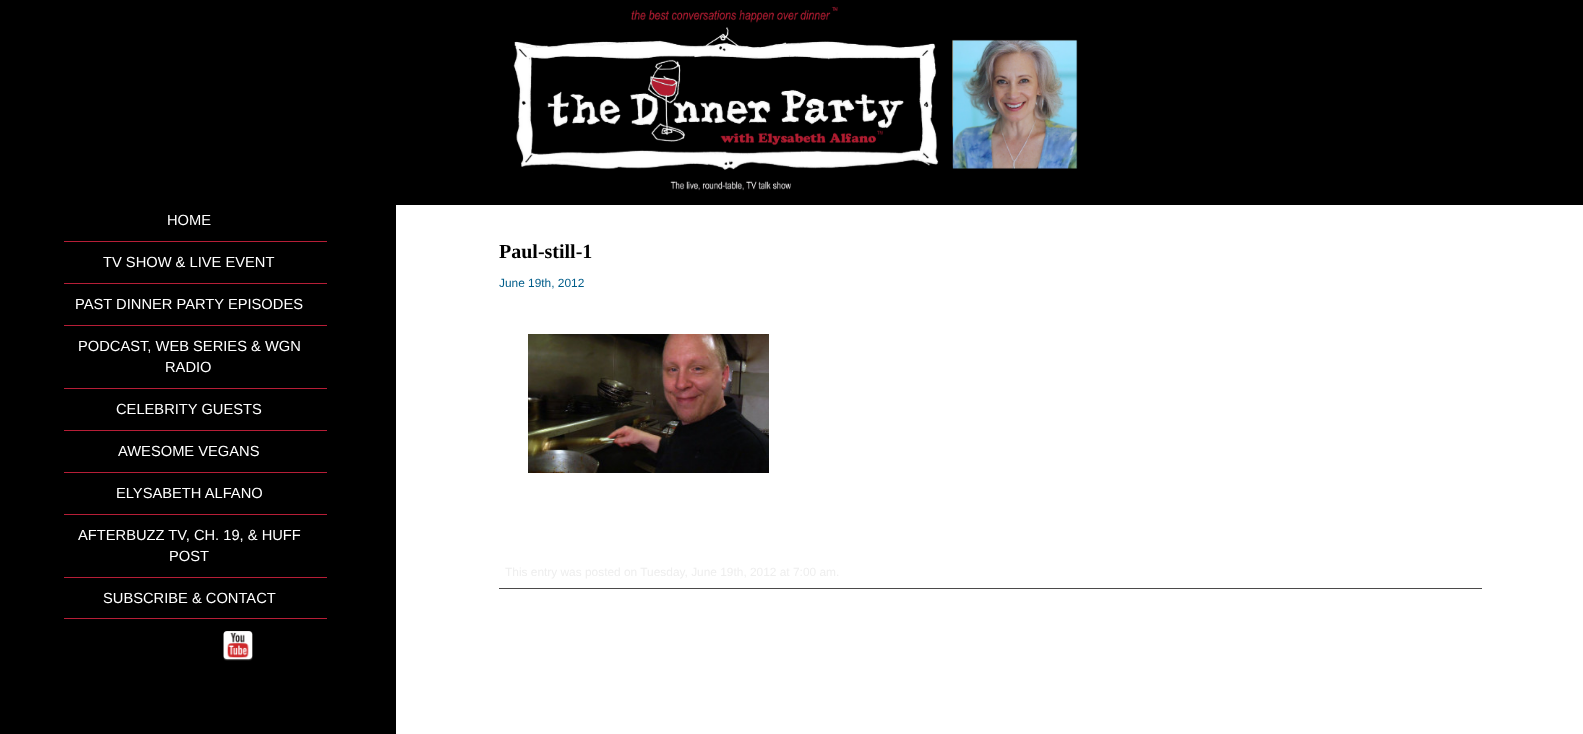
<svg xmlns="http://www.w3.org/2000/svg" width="1583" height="734">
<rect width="100%" height="100%" fill="#fff"/>
<rect width="1583" height="205" fill="#000"/>
<image x="513" y="6" width="565" height="185" href="media/1.png"/>
<rect y="205" width="396" height="529" fill="#000"/>
<rect x="64" y="241" width="263" height="1" fill="#b61e37"/>
<text x="167" y="225" style="font-family:Liberation Sans;font-size:14.7px;fill:#fff">HOME</text>
<rect x="64" y="283" width="263" height="1" fill="#b61e37"/>
<text x="103" y="267" style="font-family:Liberation Sans;font-size:14.7px;fill:#fff">TV SHOW &amp; LIVE EVENT</text>
<rect x="64" y="325" width="263" height="1" fill="#b61e37"/>
<text x="75" y="309" style="font-family:Liberation Sans;font-size:14.7px;fill:#fff">PAST DINNER PARTY EPISODES</text>
<rect x="64" y="388" width="263" height="1" fill="#b61e37"/>
<text x="78" y="351" style="font-family:Liberation Sans;font-size:14.7px;fill:#fff">PODCAST, WEB SERIES &amp; WGN</text>
<text x="165" y="372" style="font-family:Liberation Sans;font-size:14.7px;fill:#fff">RADIO</text>
<rect x="64" y="430" width="263" height="1" fill="#b61e37"/>
<text x="116" y="414" style="font-family:Liberation Sans;font-size:14.7px;fill:#fff">CELEBRITY GUESTS</text>
<rect x="64" y="472" width="263" height="1" fill="#b61e37"/>
<text x="118" y="456" style="font-family:Liberation Sans;font-size:14.7px;fill:#fff">AWESOME VEGANS</text>
<rect x="64" y="514" width="263" height="1" fill="#b61e37"/>
<text x="116" y="498" style="font-family:Liberation Sans;font-size:14.7px;fill:#fff">ELYSABETH ALFANO</text>
<rect x="64" y="577" width="263" height="1" fill="#b61e37"/>
<text x="78" y="540" style="font-family:Liberation Sans;font-size:14.7px;fill:#fff">AFTERBUZZ TV, CH. 19, &amp; HUFF</text>
<text x="169" y="561" style="font-family:Liberation Sans;font-size:14.7px;fill:#fff">POST</text>
<rect x="64" y="618" width="263" height="1" fill="#b61e37"/>
<text x="103" y="603" style="font-family:Liberation Sans;font-size:14.7px;fill:#fff">SUBSCRIBE &amp; CONTACT</text>
<image x="223" y="631" width="30" height="30" href="media/2.png"/>
<text x="499" y="258" style="font-family:Liberation Serif;font-size:20px;font-weight:bold;fill:#000">Paul-still-1</text>
<text x="499" y="287" style="font-family:Liberation Sans;font-size:11.9px;fill:#005d8a">June 19th, 2012</text>
<image x="528" y="334" width="241" height="139" href="media/3.png"/>
<rect x="499" y="588" width="983" height="1" fill="#4b4a4a"/>
<text x="505" y="576" style="font-family:Liberation Sans;font-size:11.9px;fill:#eee">This entry was posted on Tuesday, June 19th, 2012 at 7:00 am.</text>
</svg>
